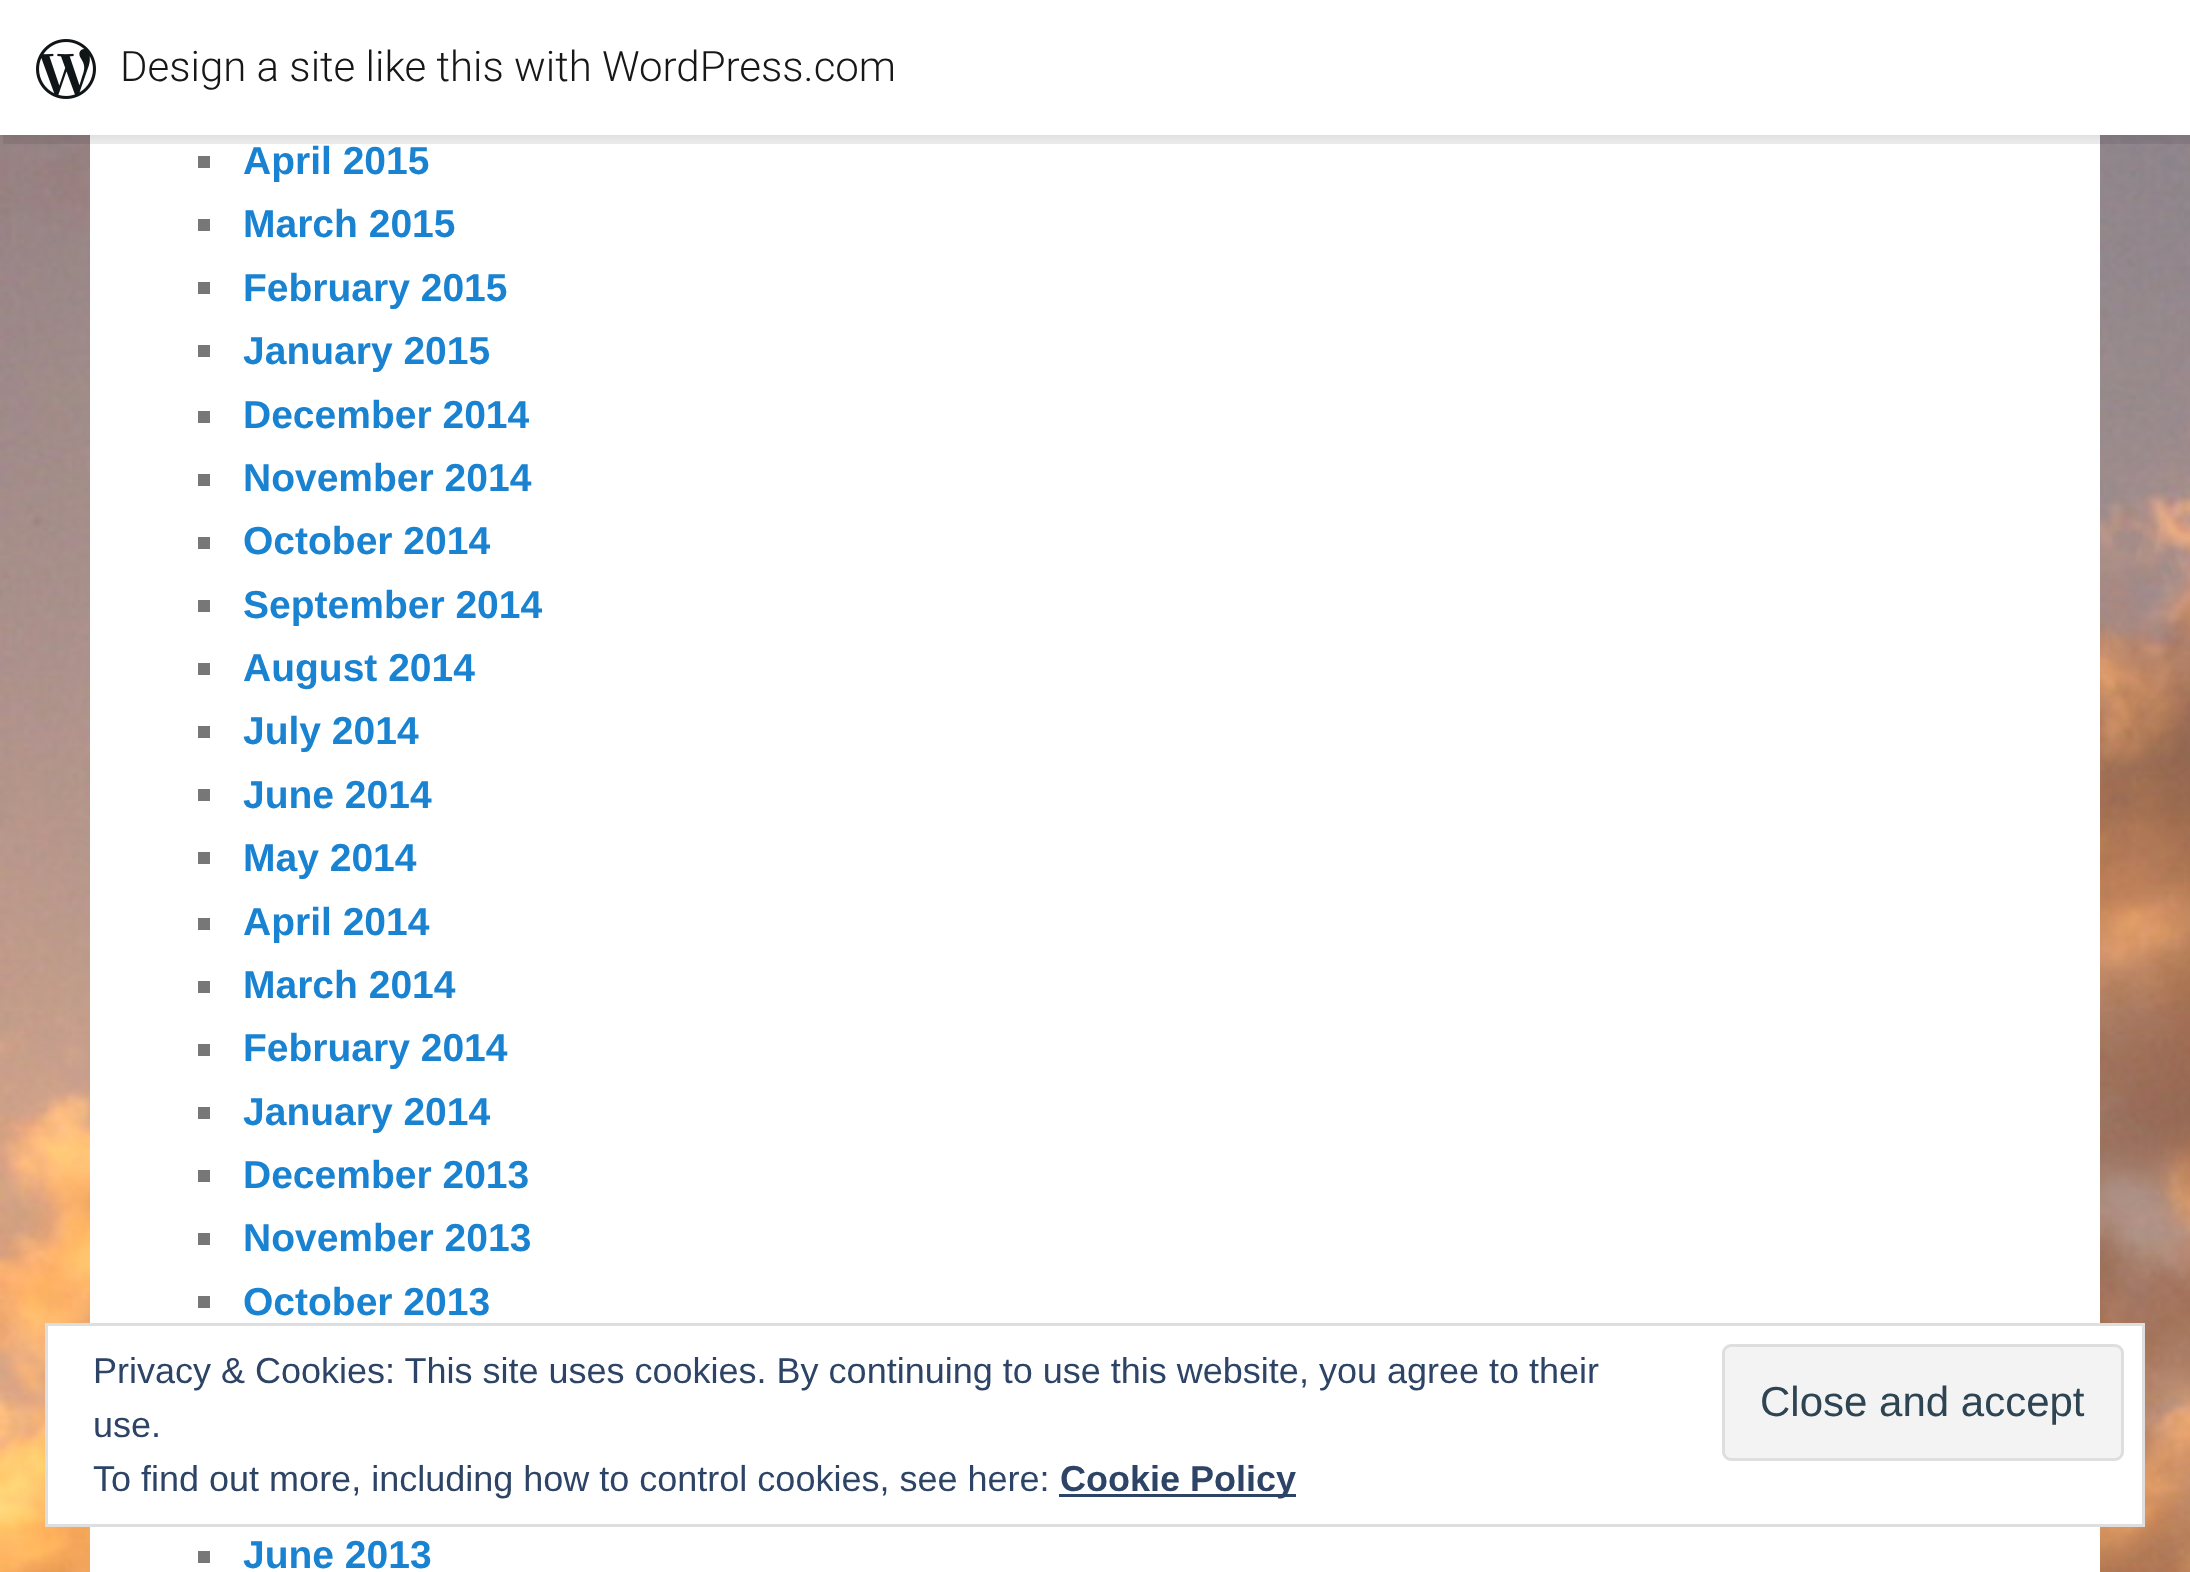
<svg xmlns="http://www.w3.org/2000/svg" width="2190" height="1572">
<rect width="100%" height="100%" fill="#fff"/>
<image x="0" y="135" width="2190" height="1437" href="media/1.png"/>
<rect x="90" y="135" width="2010" height="1437" fill="#fff"/>
<rect y="3" width="2190" height="135" fill="#0000000d" filter="blur(3px)"/>
<path d="M3 135v9h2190v-135h-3v126z" fill="#00000014"/>
<rect width="2190" height="135" fill="#fff"/>
<image x="36" y="39" width="60" height="60" href="media/2.png"/>
<text x="120" y="81" style="font-family:Roboto;font-size:42px;font-weight:300;fill:#171717">Design a site like this with WordPress.com</text>
<rect x="198" y="156" width="12" height="12" fill="#777"/>
<text x="243" y="174" style="font-family:Liberation Sans;font-size:39px;font-weight:bold;fill:#1982d1">April 2015</text>
<rect x="198" y="219" width="12" height="12" fill="#777"/>
<text x="243" y="237" style="font-family:Liberation Sans;font-size:39px;font-weight:bold;fill:#1982d1">March 2015</text>
<rect x="198" y="282" width="12" height="12" fill="#777"/>
<text x="243" y="301" style="font-family:Liberation Sans;font-size:39px;font-weight:bold;fill:#1982d1">February 2015</text>
<rect x="198" y="345" width="12" height="12" fill="#777"/>
<text x="243" y="364" style="font-family:Liberation Sans;font-size:39px;font-weight:bold;fill:#1982d1">January 2015</text>
<rect x="198" y="411" width="12" height="12" fill="#777"/>
<text x="243" y="428" style="font-family:Liberation Sans;font-size:39px;font-weight:bold;fill:#1982d1">December 2014</text>
<rect x="198" y="474" width="12" height="12" fill="#777"/>
<text x="243" y="491" style="font-family:Liberation Sans;font-size:39px;font-weight:bold;fill:#1982d1">November 2014</text>
<rect x="198" y="537" width="12" height="12" fill="#777"/>
<text x="243" y="554" style="font-family:Liberation Sans;font-size:39px;font-weight:bold;fill:#1982d1">October 2014</text>
<rect x="198" y="600" width="12" height="12" fill="#777"/>
<text x="243" y="618" style="font-family:Liberation Sans;font-size:39px;font-weight:bold;fill:#1982d1">September 2014</text>
<rect x="198" y="663" width="12" height="12" fill="#777"/>
<text x="243" y="681" style="font-family:Liberation Sans;font-size:39px;font-weight:bold;fill:#1982d1">August 2014</text>
<rect x="198" y="726" width="12" height="12" fill="#777"/>
<text x="243" y="744" style="font-family:Liberation Sans;font-size:39px;font-weight:bold;fill:#1982d1">July 2014</text>
<rect x="198" y="789" width="12" height="12" fill="#777"/>
<text x="243" y="808" style="font-family:Liberation Sans;font-size:39px;font-weight:bold;fill:#1982d1">June 2014</text>
<rect x="198" y="852" width="12" height="12" fill="#777"/>
<text x="243" y="871" style="font-family:Liberation Sans;font-size:39px;font-weight:bold;fill:#1982d1">May 2014</text>
<rect x="198" y="918" width="12" height="12" fill="#777"/>
<text x="243" y="935" style="font-family:Liberation Sans;font-size:39px;font-weight:bold;fill:#1982d1">April 2014</text>
<rect x="198" y="981" width="12" height="12" fill="#777"/>
<text x="243" y="998" style="font-family:Liberation Sans;font-size:39px;font-weight:bold;fill:#1982d1">March 2014</text>
<rect x="198" y="1044" width="12" height="12" fill="#777"/>
<text x="243" y="1061" style="font-family:Liberation Sans;font-size:39px;font-weight:bold;fill:#1982d1">February 2014</text>
<rect x="198" y="1107" width="12" height="12" fill="#777"/>
<text x="243" y="1125" style="font-family:Liberation Sans;font-size:39px;font-weight:bold;fill:#1982d1">January 2014</text>
<rect x="198" y="1170" width="12" height="12" fill="#777"/>
<text x="243" y="1188" style="font-family:Liberation Sans;font-size:39px;font-weight:bold;fill:#1982d1">December 2013</text>
<rect x="198" y="1233" width="12" height="12" fill="#777"/>
<text x="243" y="1251" style="font-family:Liberation Sans;font-size:39px;font-weight:bold;fill:#1982d1">November 2013</text>
<rect x="198" y="1296" width="12" height="12" fill="#777"/>
<text x="243" y="1315" style="font-family:Liberation Sans;font-size:39px;font-weight:bold;fill:#1982d1">October 2013</text>
<rect x="198" y="1551" width="12" height="12" fill="#777"/>
<text x="243" y="1568" style="font-family:Liberation Sans;font-size:39px;font-weight:bold;fill:#1982d1">June 2013</text>
<rect x="46.5" y="1324.5" width="2097" height="201" fill="#fff" stroke="#dedede" stroke-width="3"/>
<text x="93" y="1383" style="font-family:Liberation Sans;font-size:36px;fill:#2e4467">Privacy &amp; Cookies: This site uses cookies. By continuing to use this website, you agree to their</text>
<rect x="1723.5" y="1345.5" width="399" height="114" rx="7.5" fill="#f3f3f3" stroke="#dedede" stroke-width="3"/>
<text x="1760" y="1416" style="font-family:Liberation Sans;font-size:42px;fill:#2e4453">Close and accept</text>
<text x="93" y="1437" style="font-family:Liberation Sans;font-size:36px;fill:#2e4467">use.</text>
<text x="93" y="1491" style="font-family:Liberation Sans;font-size:36px;fill:#2e4467">To find out more, including how to control cookies, see here:</text>
<rect x="1059" y="1494" width="237" height="3" fill="#2e4467"/>
<text x="1060" y="1491" style="font-family:Liberation Sans;font-size:36px;font-weight:bold;fill:#2e4467">Cookie Policy</text>
</svg>
